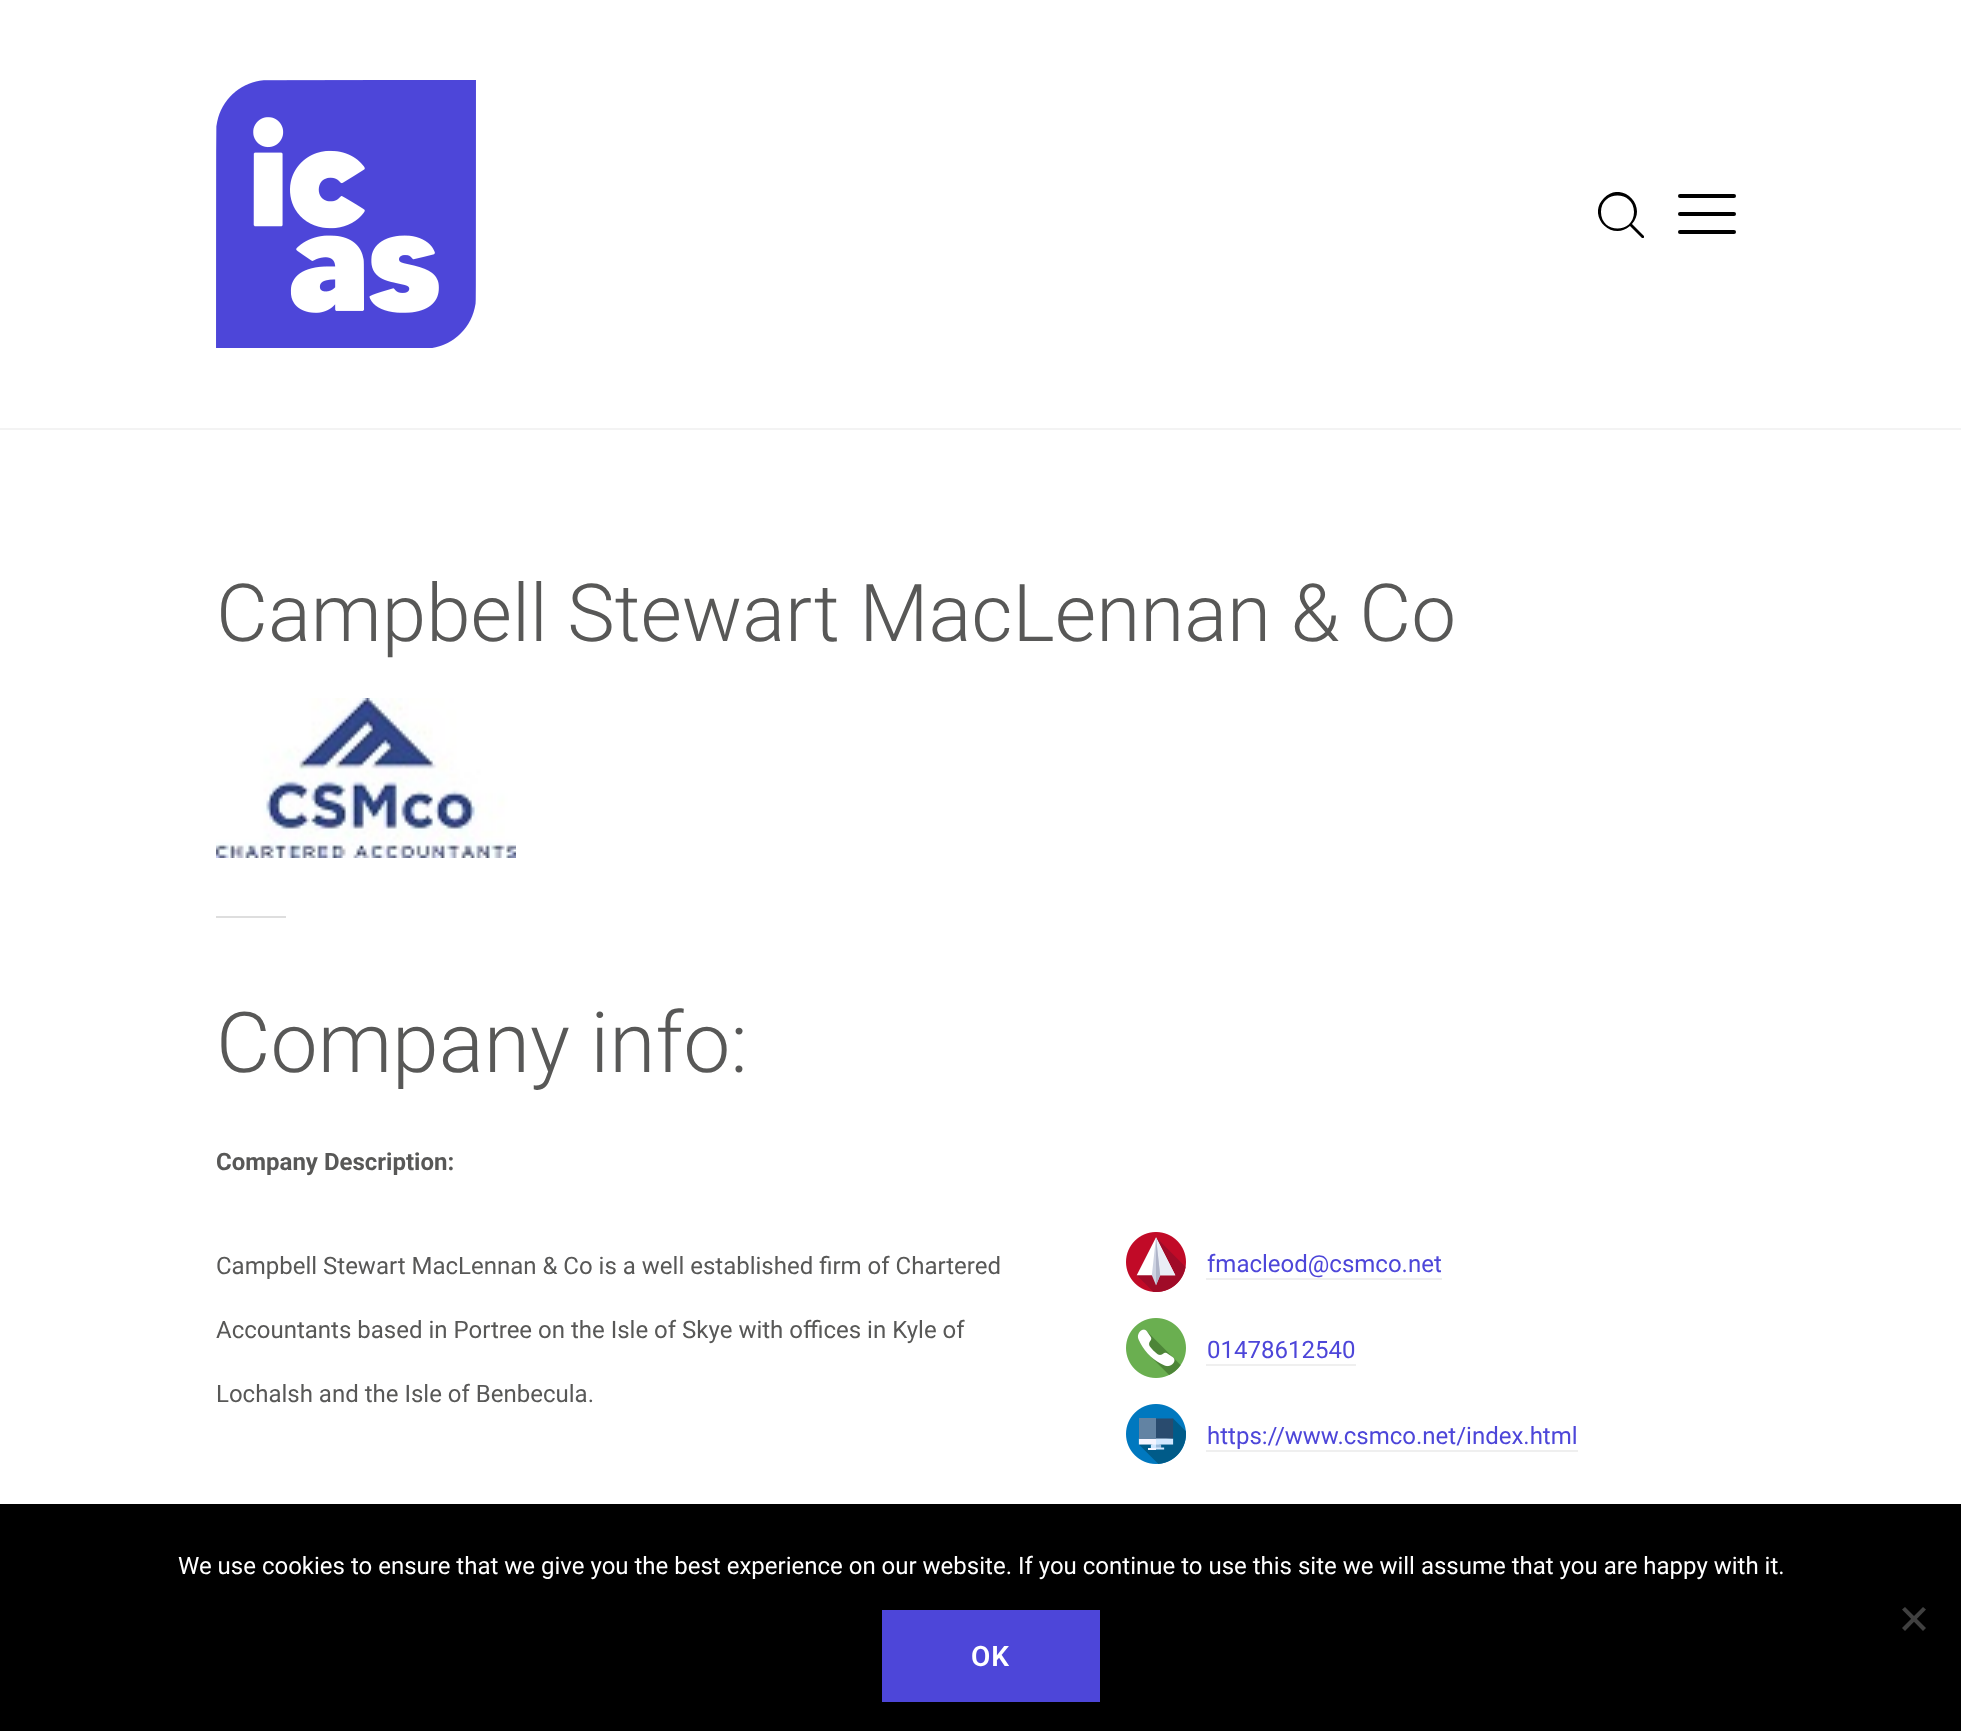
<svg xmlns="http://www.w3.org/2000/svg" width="1961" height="1731">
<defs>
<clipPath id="clip1"><rect x="1598" y="192" width="46" height="46"/></clipPath>
</defs>
<rect width="100%" height="100%" fill="#fff"/>
<rect y="428" width="1961" height="2" fill="#f3f3f3"/>
<image x="216" y="80" width="260" height="268" href="media/1.png"/>
<g clip-path="url(#clip1)">
<path d="M1644 236l-12-12c16-18-10-44-28-26c-18 18 8 44 26 28l12 12c1 1 3-1 2-2zm-43-24c0-22 33-22 33 0c0 22-33 22-33 0z" fill="#000"/>
</g>
<rect x="1678" y="194" width="58" height="4" rx="2" fill="#000"/>
<rect x="1678" y="212" width="58" height="4" rx="2" fill="#000"/>
<rect x="1678" y="230" width="58" height="4" rx="2" fill="#000"/>
<text x="216" y="641" style="font-family:Roboto;font-size:80px;font-weight:300;fill:#585857">Campbell Stewart MacLennan &amp; Co</text>
<image x="216" y="698" width="300" height="160" href="media/2.png"/>
<rect x="216" y="916" width="70" height="2" fill="#dedede"/>
<text x="216" y="1072" style="font-family:Roboto;font-size:84px;font-weight:300;fill:#585857">Company info:</text>
<text x="216" y="1170" style="font-family:Roboto;font-size:24px;font-weight:bold;fill:#585857">Company Description:</text>
<text x="216" y="1274" style="font-family:Roboto;font-size:24px;fill:#585857">Campbell Stewart MacLennan &amp; Co is a well established firm of Chartered</text>
<text x="216" y="1338" style="font-family:Roboto;font-size:24px;fill:#585857">Accountants based in Portree on the Isle of Skye with offices in Kyle of</text>
<text x="216" y="1402" style="font-family:Roboto;font-size:24px;fill:#585857">Lochalsh and the Isle of Benbecula.</text>
<image x="1126" y="1232" width="60" height="60" href="media/3.png"/>
<text x="1207" y="1272" style="font-family:Roboto;font-size:24px;fill:#4d46d9">fmacleod@csmco.net</text>
<rect x="1206" y="1278" width="236" height="2" fill="#efefef"/>
<image x="1126" y="1318" width="60" height="60" href="media/4.png"/>
<text x="1207" y="1358" style="font-family:Roboto;font-size:24px;fill:#4d46d9">01478612540</text>
<rect x="1206" y="1364" width="150" height="2" fill="#efefef"/>
<image x="1126" y="1404" width="60" height="60" href="media/5.png"/>
<text x="1207" y="1444" style="font-family:Roboto;font-size:24px;fill:#4d46d9">https://www.csmco.net/index.html</text>
<rect x="1206" y="1450" width="372" height="2" fill="#efefef"/>
<rect y="1504" width="1961" height="227" fill="#000"/>
<text x="178" y="1574" style="font-family:Roboto;font-size:24px;fill:#fff">We use cookies to ensure that we give you the best experience on our website. If you continue to use this site we will assume that you are happy with it.</text>
<path d="M1923 1607l3 2.5l-21 21.5l-3-3z" fill="#404040"/>
<path d="M1902 1609.5l3-2.5l21 21l-3 3z" fill="#404040"/>
<rect x="882" y="1610" width="218" height="92" fill="#4d46d9"/>
<text x="971" y="1666" style="font-family:Roboto;font-size:28px;font-weight:600;letter-spacing:1px;fill:#fff">OK</text>
</svg>
